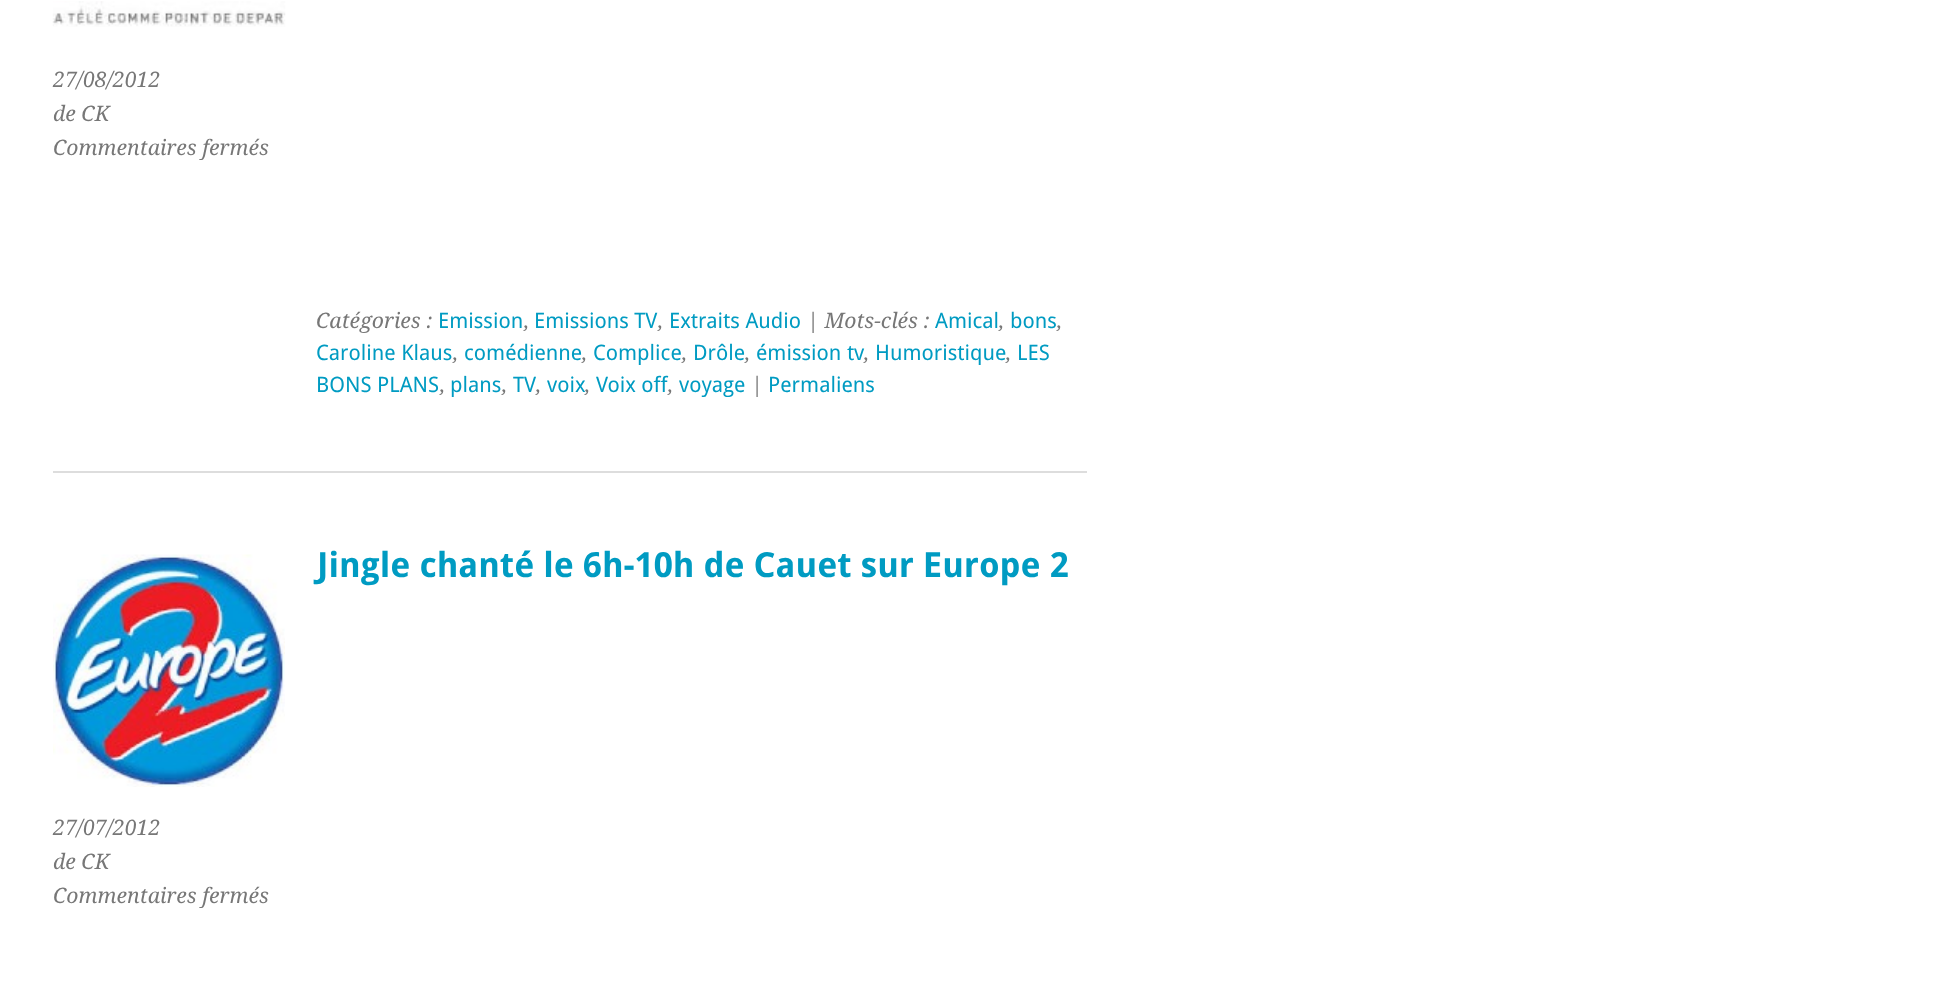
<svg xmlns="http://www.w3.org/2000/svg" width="1936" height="995">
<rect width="100%" height="100%" fill="#fff"/>
<rect x="53" y="471" width="1034" height="2" fill="#ddd"/>
<image x="52" y="1" width="234" height="26" href="media/1.png"/>
<text x="53" y="87" style="font-family:Droid Serif;font-size:21.25px;font-style:italic;fill:#777">27/08/2012</text>
<text x="53" y="121" style="font-family:Droid Serif;font-size:21.25px;font-style:italic;fill:#777">de CK</text>
<text x="53" y="155" style="font-family:Droid Serif;font-size:21.25px;font-style:italic;fill:#777">Commentaires fermés</text>
<text x="316" y="328" style="font-family:Droid Serif;font-size:21.25px;font-style:italic;fill:#777">Catégories :</text>
<text x="438" y="328" style="font-family:Droid Sans;font-size:21.25px;fill:#009bc2">Emission</text>
<text x="524" y="328" style="font-family:Droid Serif;font-size:21.25px;font-style:italic;fill:#777">,</text>
<text x="534" y="328" style="font-family:Droid Sans;font-size:21.25px;fill:#009bc2">Emissions TV</text>
<text x="658" y="328" style="font-family:Droid Serif;font-size:21.25px;font-style:italic;fill:#777">,</text>
<text x="669" y="328" style="font-family:Droid Sans;font-size:21.25px;fill:#009bc2">Extraits Audio</text>
<text x="807" y="328" style="font-family:Droid Serif;font-size:21.25px;font-style:italic;fill:#777">| Mots-clés :</text>
<text x="935" y="328" style="font-family:Droid Sans;font-size:21.25px;fill:#009bc2">Amical</text>
<text x="999" y="328" style="font-family:Droid Serif;font-size:21.25px;font-style:italic;fill:#777">,</text>
<text x="1010" y="328" style="font-family:Droid Sans;font-size:21.25px;fill:#009bc2">bons</text>
<text x="1057" y="328" style="font-family:Droid Serif;font-size:21.25px;font-style:italic;fill:#777">,</text>
<text x="316" y="360" style="font-family:Droid Sans;font-size:21.25px;fill:#009bc2">Caroline Klaus</text>
<text x="453" y="360" style="font-family:Droid Serif;font-size:21.25px;font-style:italic;fill:#777">,</text>
<text x="464" y="360" style="font-family:Droid Sans;font-size:21.25px;fill:#009bc2">comédienne</text>
<text x="582" y="360" style="font-family:Droid Serif;font-size:21.25px;font-style:italic;fill:#777">,</text>
<text x="593" y="360" style="font-family:Droid Sans;font-size:21.25px;fill:#009bc2">Complice</text>
<text x="682" y="360" style="font-family:Droid Serif;font-size:21.25px;font-style:italic;fill:#777">,</text>
<text x="693" y="360" style="font-family:Droid Sans;font-size:21.25px;fill:#009bc2">Drôle</text>
<text x="745" y="360" style="font-family:Droid Serif;font-size:21.25px;font-style:italic;fill:#777">,</text>
<text x="756" y="360" style="font-family:Droid Sans;font-size:21.25px;fill:#009bc2">émission tv</text>
<text x="864" y="360" style="font-family:Droid Serif;font-size:21.25px;font-style:italic;fill:#777">,</text>
<text x="875" y="360" style="font-family:Droid Sans;font-size:21.25px;fill:#009bc2">Humoristique</text>
<text x="1006" y="360" style="font-family:Droid Serif;font-size:21.25px;font-style:italic;fill:#777">,</text>
<text x="1017" y="360" style="font-family:Droid Sans;font-size:21.25px;fill:#009bc2">LES</text>
<text x="316" y="392" style="font-family:Droid Sans;font-size:21.25px;fill:#009bc2">BONS PLANS</text>
<text x="440" y="392" style="font-family:Droid Serif;font-size:21.25px;font-style:italic;fill:#777">,</text>
<text x="450" y="392" style="font-family:Droid Sans;font-size:21.25px;fill:#009bc2">plans</text>
<text x="502" y="392" style="font-family:Droid Serif;font-size:21.25px;font-style:italic;fill:#777">,</text>
<text x="513" y="392" style="font-family:Droid Sans;font-size:21.25px;fill:#009bc2">TV</text>
<text x="536" y="392" style="font-family:Droid Serif;font-size:21.25px;font-style:italic;fill:#777">,</text>
<text x="547" y="392" style="font-family:Droid Sans;font-size:21.25px;fill:#009bc2">voix</text>
<text x="585" y="392" style="font-family:Droid Serif;font-size:21.25px;font-style:italic;fill:#777">,</text>
<text x="596" y="392" style="font-family:Droid Sans;font-size:21.25px;fill:#009bc2">Voix off</text>
<text x="668" y="392" style="font-family:Droid Serif;font-size:21.25px;font-style:italic;fill:#777">,</text>
<text x="679" y="392" style="font-family:Droid Sans;font-size:21.25px;fill:#009bc2">voyage</text>
<text x="751" y="392" style="font-family:Droid Serif;font-size:21.25px;font-style:italic;fill:#777">|</text>
<text x="768" y="392" style="font-family:Droid Sans;font-size:21.25px;fill:#009bc2">Permaliens</text>
<text x="317" y="577" style="font-family:Droid Sans;font-size:34.6px;font-weight:bold;fill:#009bc2">Jingle chanté le 6h-10h de Cauet sur Europe 2</text>
<image x="53" y="554" width="232" height="233" href="media/2.png"/>
<text x="53" y="835" style="font-family:Droid Serif;font-size:21.25px;font-style:italic;fill:#777">27/07/2012</text>
<text x="53" y="869" style="font-family:Droid Serif;font-size:21.25px;font-style:italic;fill:#777">de CK</text>
<text x="53" y="903" style="font-family:Droid Serif;font-size:21.25px;font-style:italic;fill:#777">Commentaires fermés</text>
</svg>
